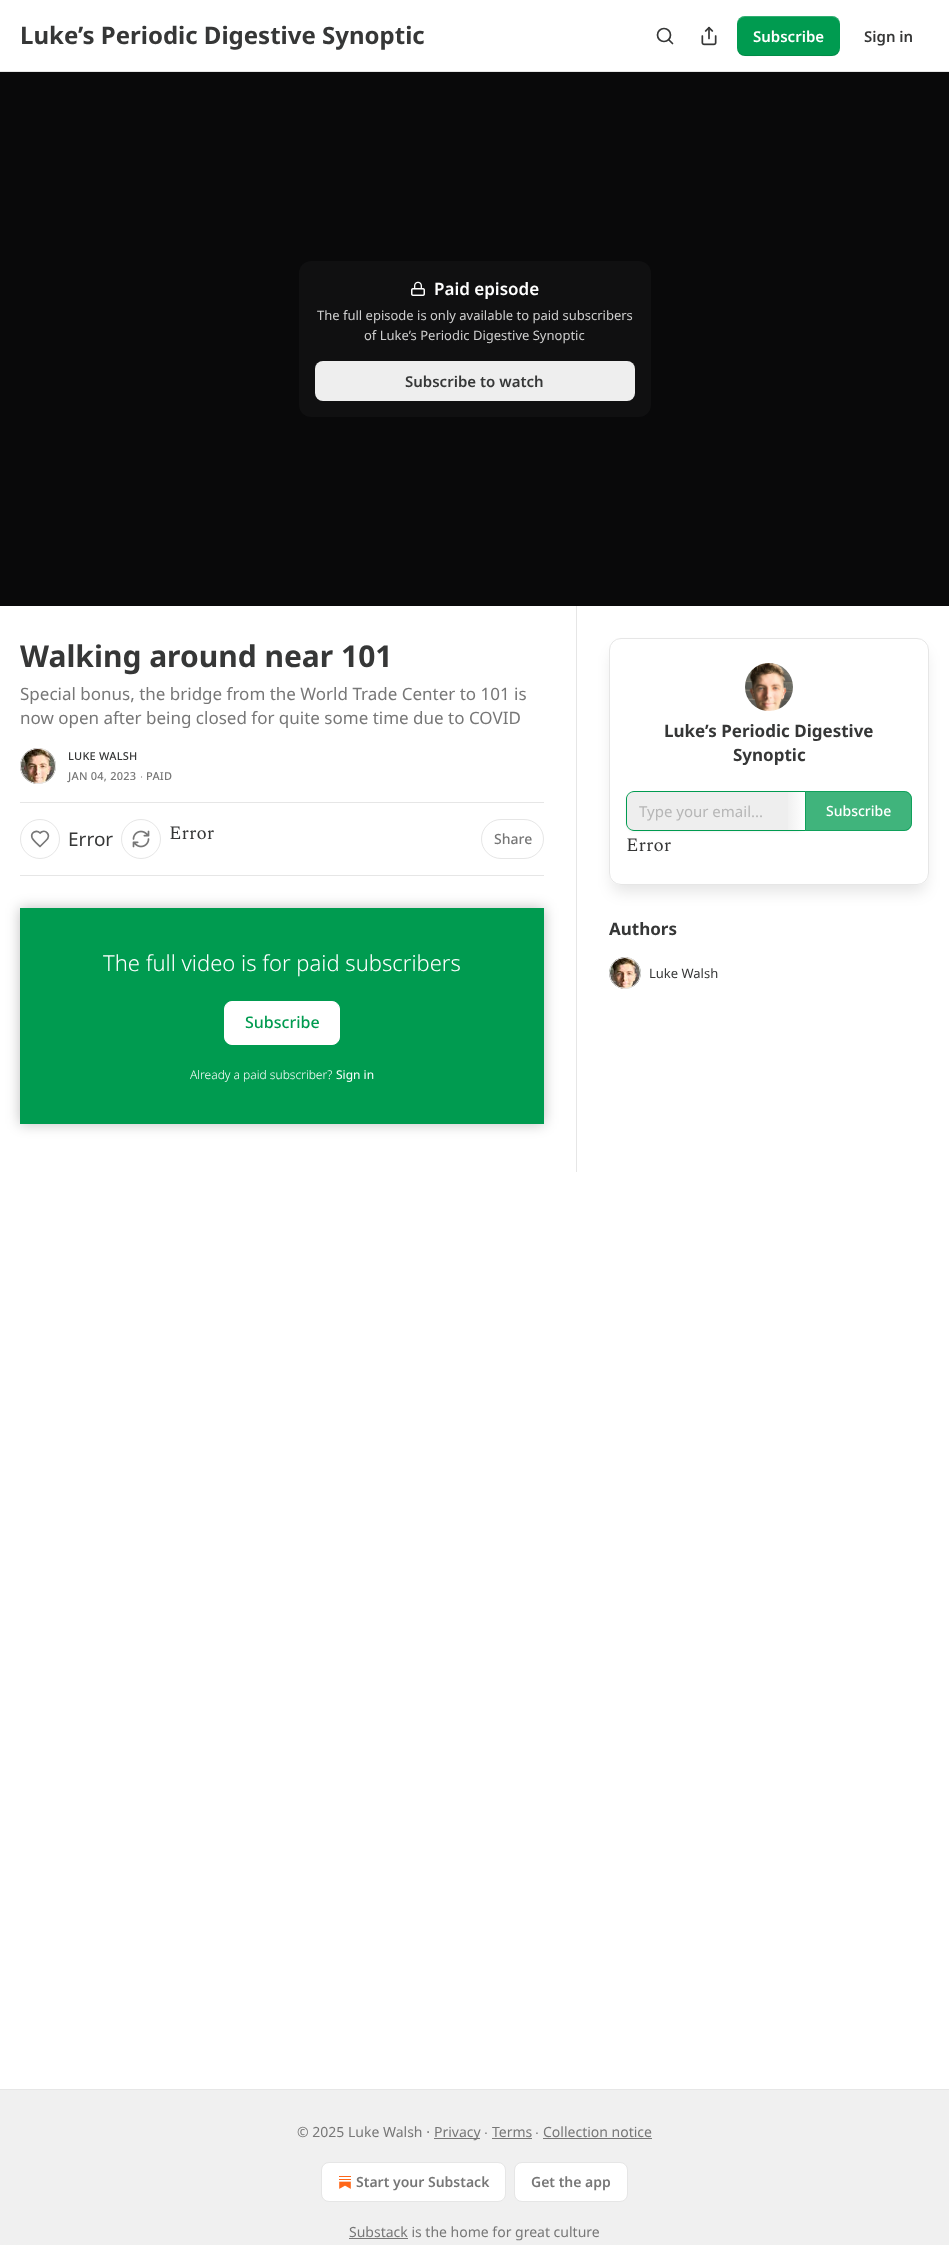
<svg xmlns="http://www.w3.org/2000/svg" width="949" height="2245">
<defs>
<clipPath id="clip1"><path d="M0 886h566v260h-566zm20 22h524v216h-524z" clip-rule="evenodd"/></clipPath>
<clipPath id="clip2"><path d="M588 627h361v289h-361zm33 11h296c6.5 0 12 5.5 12 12v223c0 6.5-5.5 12-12 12h-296c-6.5 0-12-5.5-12-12v-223c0-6.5 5.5-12 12-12z" clip-rule="evenodd"/></clipPath>
<linearGradient id="g1" gradientUnits="userSpaceOnUse" x1="785" y1="811" x2="805" y2="811"><stop offset="0" stop-color="#eee"/><stop offset="1" stop-color="#fff"/></linearGradient>
</defs>
<rect width="100%" height="100%" fill="#fff"/>
<rect y="71" width="949" height="1" fill="#e6e6e6"/>
<text x="20" y="44" style="font-family:Noto Sans;font-size:24px;font-weight:bold;fill:#363737">Luke’s Periodic Digestive Synoptic</text>
<circle cx="664" cy="35" r="6.5" fill="none" stroke="#363737" stroke-width="1.7"/>
<path d="M672.5 43.5l-3.5-3.5" fill="none" stroke="#363737" stroke-width="1.7" stroke-linecap="round" stroke-linejoin="round"/>
<image x="701" y="26" width="16" height="20" href="media/1.png"/>
<rect x="737" y="16" width="103" height="40" rx="8" fill="#009b50"/>
<path d="M737 47c0 12 14 9 23 9h58c8 0 22 3 22-9c0 4-4 8-8 8h-87c-4 0-8-4-8-8z" fill="#0000001a"/>
<path d="M745 17h87c4 0 8 4 8 8c0-12-14-9-22-9h-58c-9 0-23-3-23 9c0-4 4-8 8-8z" fill="#ffffff33"/>
<text x="753" y="42" style="font-family:Noto Sans;font-size:15px;font-weight:600;fill:#fff">Subscribe</text>
<text x="864" y="42" style="font-family:Noto Sans;font-size:15px;font-weight:600;fill:#363737">Sign in</text>
<rect y="72" width="949" height="534" fill="#09090a"/>
<rect x="299" y="261" width="352" height="156" rx="12" fill="#101011"/>
<image x="411" y="281" width="14" height="15" href="media/2.png"/>
<text x="434" y="295" style="font-family:Noto Sans;font-size:17px;font-weight:600;fill:#fff">Paid episode</text>
<text x="317" y="320" style="font-family:Noto Sans;font-size:13px;fill:#cfcfcf">The full episode is only available to paid subscribers</text>
<text x="364" y="340" style="font-family:Noto Sans;font-size:13px;fill:#cfcfcf">of Luke’s Periodic Digestive Synoptic</text>
<rect x="315" y="361" width="320" height="40" rx="8" fill="#eee"/>
<text x="405" y="387" style="font-family:Noto Sans;font-size:15px;font-weight:600;fill:#363737">Subscribe to watch</text>
<text x="20" y="667" style="font-family:Noto Sans;font-size:30px;font-weight:bold;fill:#363737">Walking around near 101</text>
<text x="20" y="700" style="font-family:Noto Sans;font-size:17px;fill:#777">Special bonus, the bridge from the World Trade Center to 101 is</text>
<text x="20" y="724" style="font-family:Noto Sans;font-size:17px;fill:#777">now open after being closed for quite some time due to COVID</text>
<circle cx="38" cy="766" r="17.5" fill="none" stroke="#e6e6e6"/>
<image x="20" y="748" width="36" height="36" href="media/3.png"/>
<circle cx="38" cy="766" r="17.5" fill="none" stroke="#e6e6e6"/>
<text x="68" y="760" style="font-family:Noto Sans;font-size:11px;font-weight:500;letter-spacing:0.25px;fill:#363737">LUKE WALSH</text>
<text x="68" y="780" style="font-family:Noto Sans;font-size:11px;font-weight:500;letter-spacing:0.25px;fill:#777">JAN 04, 2023</text>
<text x="140" y="780" style="font-family:Liberation Sans;font-size:11px;letter-spacing:0.25px;fill:#777">∙</text>
<text x="146" y="780" style="font-family:Noto Sans;font-size:11px;font-weight:500;letter-spacing:0.25px;fill:#777">PAID</text>
<rect x="20" y="802" width="524" height="1" fill="#e6e6e6"/>
<rect x="20" y="875" width="524" height="1" fill="#e6e6e6"/>
<circle cx="40" cy="839" r="19.5" fill="none" stroke="#e6e6e6"/>
<path d="M46 840.5c6-6-1-12-6-7.5c-3.5-3.5-9.5-.5-8 4.5c1 3 6 7 8 9z" fill="none" stroke="#777" stroke-width="1.7" stroke-linecap="round" stroke-linejoin="round"/>
<text x="68" y="846" style="font-family:Noto Sans;font-size:19px;fill:#363737">Error</text>
<circle cx="141" cy="839" r="19.5" fill="none" stroke="#e6e6e6"/>
<image x="132" y="830" width="18" height="18" href="media/4.png"/>
<text x="169" y="839" style="font-family:Spectral;font-size:19px;fill:#363737">Error</text>
<rect x="481.5" y="819.5" width="62" height="39" rx="19.5" fill="none" stroke="#e6e6e6"/>
<text x="494" y="844" style="font-family:Noto Sans;font-size:14px;font-weight:500;fill:#777">Share</text>
<rect x="20" y="908" width="524" height="216" fill="#009b50"/>
<rect x="224.5" y="1001.5" width="115" height="43" rx="7.5" fill="#fff" stroke="#fff"/>
<g clip-path="url(#clip1)">
<rect x="20" y="908" width="524" height="216" fill="#00000040" filter="blur(7px)"/>
</g>
<text x="103" y="971" style="font-family:Noto Sans;font-size:22px;font-weight:300;fill:#fff">The full video is for paid subscribers</text>
<text x="245" y="1028" style="font-family:Noto Sans;font-size:16px;font-weight:500;fill:#009b50">Subscribe</text>
<text x="190" y="1079" style="font-family:Noto Sans;font-size:12px;font-weight:300;fill:#fff">Already a paid subscriber?</text>
<text x="336" y="1079" style="font-family:Noto Sans;font-size:12px;fill:#fff">Sign in</text>
<rect x="576" y="606" width="1" height="566" fill="#e6e6e6"/>
<g clip-path="url(#clip2)">
<rect x="612" y="651" width="314" height="241" rx="9" fill="#0000001a" filter="blur(7.5px)"/>
</g>
<rect x="609.5" y="638.5" width="319" height="246" rx="11.5" fill="none" stroke="#e6e6e6"/>
<image x="745" y="663" width="48" height="48" href="media/5.png"/>
<text x="664" y="737" style="font-family:Noto Sans;font-size:17px;font-weight:bold;fill:#363737">Luke’s Periodic Digestive</text>
<text x="733" y="761" style="font-family:Noto Sans;font-size:17px;font-weight:bold;fill:#363737">Synoptic</text>
<rect x="626" y="792" width="179" height="40" rx="8" fill="#0000000d" filter="blur(1px)"/>
<path d="M634 792h171v38h-171c-4 0-7-3-7-7v-24c0-4 3-7 7-7z" fill="#eee"/>
<path d="M634 791h171v40h-171c-4 0-8-4-8-8v-24c0-4 4-8 8-8zm0 1h171v38h-171c-4 0-7-3-7-7v-24c0-4 3-7 7-7z" fill="#009b50" fill-rule="evenodd"/>
<text x="639" y="817" style="font-family:Noto Sans;font-size:15px;fill:#b6b6b6">Type your email...</text>
<rect x="788" y="792" width="17" height="38" fill="url(#g1)"/>
<path d="M805 791h99c4.5 0 8 3.5 8 8v24c0 4.5-3.5 8-8 8h-99z" fill="#009b50bf"/>
<path d="M805.5 791.5h98.5c4 0 7.5 3.5 7.5 7.5v24c0 4-3.5 7.5-7.5 7.5h-98.5z" fill="none" stroke="#009b50bf"/>
<text x="826" y="816" style="font-family:Noto Sans;font-size:14px;font-weight:500;fill:#fff">Subscribe</text>
<text x="626" y="851" style="font-family:Spectral;font-size:19px;fill:#363737">Error</text>
<text x="609" y="935" style="font-family:Noto Sans;font-size:17px;font-weight:bold;fill:#363737">Authors</text>
<circle cx="625" cy="973" r="15.5" fill="none" stroke="#e6e6e6"/>
<image x="609" y="957" width="32" height="32" href="media/6.png"/>
<circle cx="625" cy="973" r="15.5" fill="none" stroke="#e6e6e6"/>
<text x="649" y="978" style="font-family:Noto Sans;font-size:13px;fill:#363737">Luke Walsh</text>
<rect y="2090" width="949" height="155" fill="#f0f0f0"/>
<rect y="2089" width="949" height="1" fill="#e6e6e6"/>
<text x="297" y="2137" style="font-family:Noto Sans;font-size:14px;fill:#777">© 2025 Luke Walsh ·</text>
<rect x="434" y="2138" width="46" height="1" fill="#777"/>
<text x="434" y="2137" style="font-family:Noto Sans;font-size:14px;fill:#777">Privacy</text>
<text x="484" y="2137" style="font-family:Liberation Sans;font-size:14px;fill:#777">∙</text>
<text x="492" y="2137" style="font-family:Noto Sans;font-size:14px;fill:#777">Terms</text>
<rect x="492" y="2138" width="40" height="1" fill="#777"/>
<text x="535" y="2137" style="font-family:Liberation Sans;font-size:14px;fill:#777">∙</text>
<text x="543" y="2137" style="font-family:Noto Sans;font-size:14px;fill:#777">Collection notice</text>
<rect x="543" y="2138" width="109" height="1" fill="#777"/>
<rect x="321.5" y="2162.5" width="184" height="39" rx="7.5" fill="#fff" stroke="#e6e6e6"/>
<image x="339" y="2176" width="12" height="13" href="media/7.png"/>
<text x="356" y="2187" style="font-family:Noto Sans;font-size:14px;font-weight:600;fill:#777">Start your Substack</text>
<rect x="514.5" y="2162.5" width="113" height="39" rx="7.5" fill="#fff" stroke="#e6e6e6"/>
<text x="531" y="2187" style="font-family:Noto Sans;font-size:14px;font-weight:600;fill:#777">Get the app</text>
<rect x="349" y="2238" width="59" height="1" fill="#777"/>
<text x="349" y="2237" style="font-family:Noto Sans;font-size:14px;fill:#777">Substack is the home for great culture</text>
</svg>
